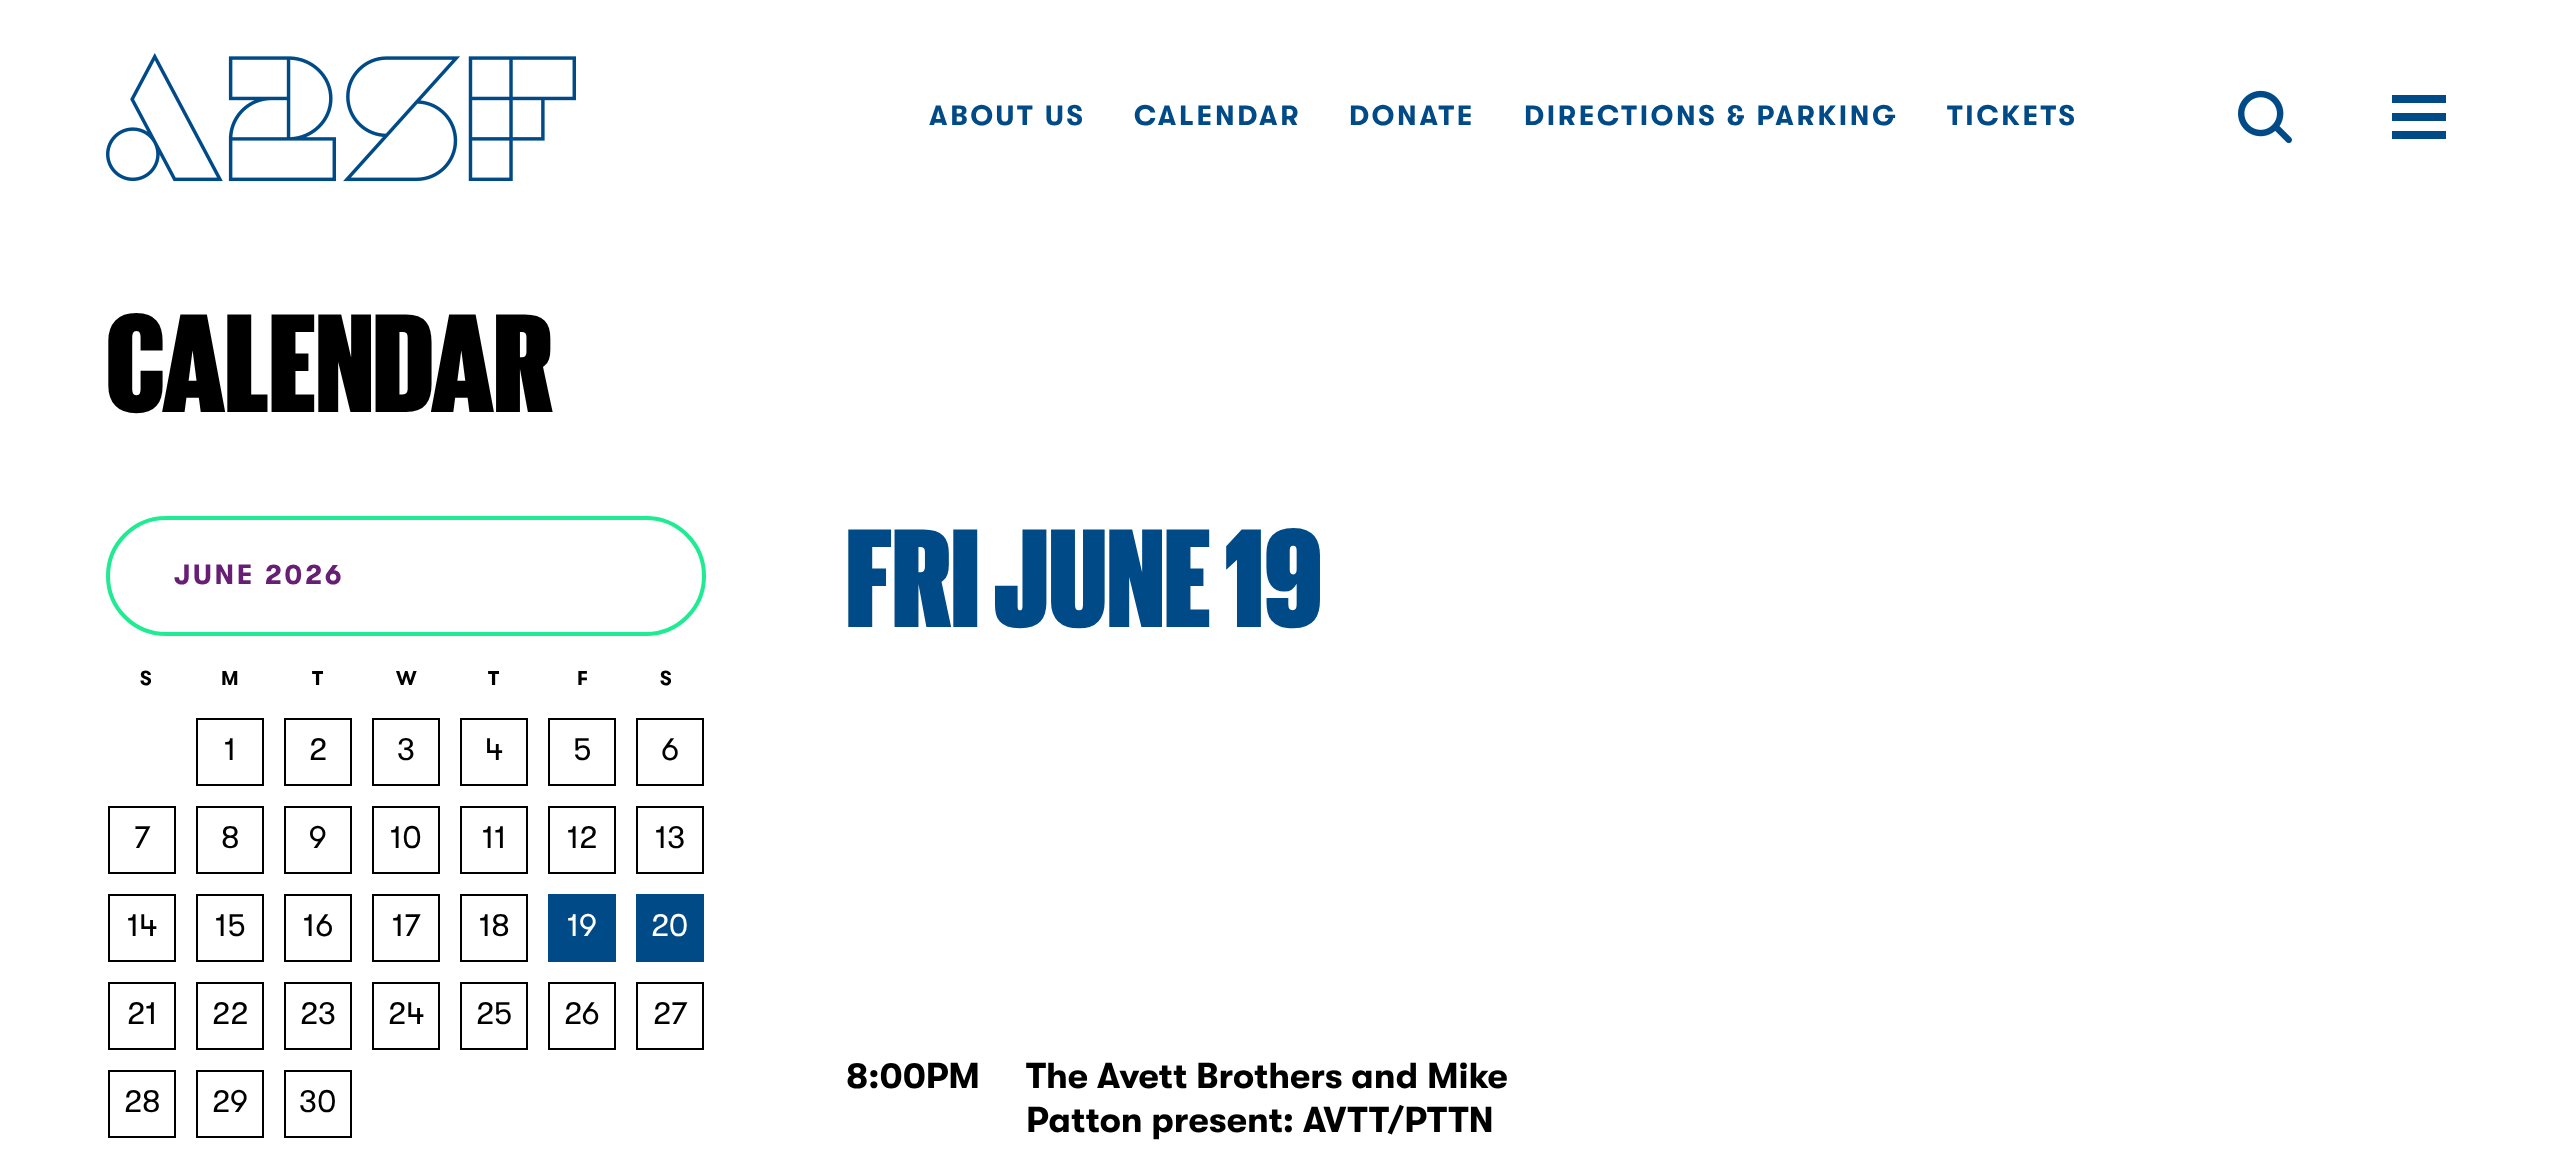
<svg xmlns="http://www.w3.org/2000/svg" width="2552" height="1163">
<rect width="100%" height="100%" fill="#fff"/>
<image x="106" y="53" width="470" height="129" href="media/1.png"/>
<text x="929" y="125" style="font-family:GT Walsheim;font-size:28px;font-weight:bold;letter-spacing:2.75px;fill:#004b87">ABOUT US</text>
<text x="1134" y="125" style="font-family:GT Walsheim;font-size:28px;font-weight:bold;letter-spacing:2.75px;fill:#004b87">CALENDAR</text>
<text x="1349" y="125" style="font-family:GT Walsheim;font-size:28px;font-weight:bold;letter-spacing:2.75px;fill:#004b87">DONATE</text>
<text x="1524" y="125" style="font-family:GT Walsheim;font-size:28px;font-weight:bold;letter-spacing:2.75px;fill:#004b87">DIRECTIONS &amp; PARKING</text>
<text x="1947" y="125" style="font-family:GT Walsheim;font-size:28px;font-weight:bold;letter-spacing:2.75px;fill:#004b87">TICKETS</text>
<image x="2238" y="90" width="54" height="54" href="media/2.png"/>
<path d="M2392 95h54v8h-54zm0 18h54v8h-54zm0 18h54v8h-54z" fill="#004b87"/>
<text x="106" y="412" style="font-family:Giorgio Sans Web;font-size:144px;font-weight:800;fill:#000">CALENDAR</text>
<rect x="108" y="518" width="596" height="116" rx="58" fill="none" stroke="#1fec92" stroke-width="4"/>
<text x="174" y="584" style="font-family:GT Walsheim;font-size:28px;font-weight:bold;letter-spacing:2.75px;fill:#671e75">JUNE 2026</text>
<text x="140" y="685" style="font-family:GT Walsheim;font-size:20px;font-weight:bold;fill:#000">S</text>
<text x="221" y="685" style="font-family:GT Walsheim;font-size:20px;font-weight:bold;fill:#000">M</text>
<text x="312" y="685" style="font-family:GT Walsheim;font-size:20px;font-weight:bold;fill:#000">T</text>
<text x="396" y="685" style="font-family:GT Walsheim;font-size:20px;font-weight:bold;fill:#000">W</text>
<text x="488" y="685" style="font-family:GT Walsheim;font-size:20px;font-weight:bold;fill:#000">T</text>
<text x="577" y="685" style="font-family:GT Walsheim;font-size:20px;font-weight:bold;fill:#000">F</text>
<text x="660" y="685" style="font-family:GT Walsheim;font-size:20px;font-weight:bold;fill:#000">S</text>
<rect x="197" y="719" width="66" height="66" fill="none" stroke="#000" stroke-width="2"/>
<text x="224" y="760" style="font-family:GT Walsheim;font-size:32px;fill:#000">1</text>
<rect x="285" y="719" width="66" height="66" fill="none" stroke="#000" stroke-width="2"/>
<text x="309" y="760" style="font-family:GT Walsheim;font-size:32px;fill:#000">2</text>
<rect x="373" y="719" width="66" height="66" fill="none" stroke="#000" stroke-width="2"/>
<text x="397" y="760" style="font-family:GT Walsheim;font-size:32px;fill:#000">3</text>
<rect x="461" y="719" width="66" height="66" fill="none" stroke="#000" stroke-width="2"/>
<text x="485" y="760" style="font-family:GT Walsheim;font-size:32px;fill:#000">4</text>
<rect x="549" y="719" width="66" height="66" fill="none" stroke="#000" stroke-width="2"/>
<text x="573" y="760" style="font-family:GT Walsheim;font-size:32px;fill:#000">5</text>
<rect x="637" y="719" width="66" height="66" fill="none" stroke="#000" stroke-width="2"/>
<text x="661" y="760" style="font-family:GT Walsheim;font-size:32px;fill:#000">6</text>
<rect x="109" y="807" width="66" height="66" fill="none" stroke="#000" stroke-width="2"/>
<text x="134" y="848" style="font-family:GT Walsheim;font-size:32px;fill:#000">7</text>
<rect x="197" y="807" width="66" height="66" fill="none" stroke="#000" stroke-width="2"/>
<text x="221" y="848" style="font-family:GT Walsheim;font-size:32px;fill:#000">8</text>
<rect x="285" y="807" width="66" height="66" fill="none" stroke="#000" stroke-width="2"/>
<text x="309" y="848" style="font-family:GT Walsheim;font-size:32px;fill:#000">9</text>
<rect x="373" y="807" width="66" height="66" fill="none" stroke="#000" stroke-width="2"/>
<text x="390" y="848" style="font-family:GT Walsheim;font-size:32px;fill:#000">10</text>
<rect x="461" y="807" width="66" height="66" fill="none" stroke="#000" stroke-width="2"/>
<text x="482" y="848" style="font-family:GT Walsheim;font-size:32px;fill:#000">11</text>
<rect x="549" y="807" width="66" height="66" fill="none" stroke="#000" stroke-width="2"/>
<text x="567" y="848" style="font-family:GT Walsheim;font-size:32px;fill:#000">12</text>
<rect x="637" y="807" width="66" height="66" fill="none" stroke="#000" stroke-width="2"/>
<text x="655" y="848" style="font-family:GT Walsheim;font-size:32px;fill:#000">13</text>
<rect x="109" y="895" width="66" height="66" fill="none" stroke="#000" stroke-width="2"/>
<text x="127" y="936" style="font-family:GT Walsheim;font-size:32px;fill:#000">14</text>
<rect x="197" y="895" width="66" height="66" fill="none" stroke="#000" stroke-width="2"/>
<text x="215" y="936" style="font-family:GT Walsheim;font-size:32px;fill:#000">15</text>
<rect x="285" y="895" width="66" height="66" fill="none" stroke="#000" stroke-width="2"/>
<text x="303" y="936" style="font-family:GT Walsheim;font-size:32px;fill:#000">16</text>
<rect x="373" y="895" width="66" height="66" fill="none" stroke="#000" stroke-width="2"/>
<text x="392" y="936" style="font-family:GT Walsheim;font-size:32px;fill:#000">17</text>
<rect x="461" y="895" width="66" height="66" fill="none" stroke="#000" stroke-width="2"/>
<text x="479" y="936" style="font-family:GT Walsheim;font-size:32px;fill:#000">18</text>
<rect x="548" y="894" width="68" height="68" fill="#004b87"/>
<text x="567" y="936" style="font-family:GT Walsheim;font-size:32px;fill:#fff">19</text>
<rect x="636" y="894" width="68" height="68" fill="#004b87"/>
<text x="651" y="936" style="font-family:GT Walsheim;font-size:32px;fill:#fff">20</text>
<rect x="109" y="983" width="66" height="66" fill="none" stroke="#000" stroke-width="2"/>
<text x="127" y="1024" style="font-family:GT Walsheim;font-size:32px;fill:#000">21</text>
<rect x="197" y="983" width="66" height="66" fill="none" stroke="#000" stroke-width="2"/>
<text x="212" y="1024" style="font-family:GT Walsheim;font-size:32px;fill:#000">22</text>
<rect x="285" y="983" width="66" height="66" fill="none" stroke="#000" stroke-width="2"/>
<text x="300" y="1024" style="font-family:GT Walsheim;font-size:32px;fill:#000">23</text>
<rect x="373" y="983" width="66" height="66" fill="none" stroke="#000" stroke-width="2"/>
<text x="388" y="1024" style="font-family:GT Walsheim;font-size:32px;fill:#000">24</text>
<rect x="461" y="983" width="66" height="66" fill="none" stroke="#000" stroke-width="2"/>
<text x="476" y="1024" style="font-family:GT Walsheim;font-size:32px;fill:#000">25</text>
<rect x="549" y="983" width="66" height="66" fill="none" stroke="#000" stroke-width="2"/>
<text x="564" y="1024" style="font-family:GT Walsheim;font-size:32px;fill:#000">26</text>
<rect x="637" y="983" width="66" height="66" fill="none" stroke="#000" stroke-width="2"/>
<text x="653" y="1024" style="font-family:GT Walsheim;font-size:32px;fill:#000">27</text>
<rect x="109" y="1071" width="66" height="66" fill="none" stroke="#000" stroke-width="2"/>
<text x="124" y="1112" style="font-family:GT Walsheim;font-size:32px;fill:#000">28</text>
<rect x="197" y="1071" width="66" height="66" fill="none" stroke="#000" stroke-width="2"/>
<text x="212" y="1112" style="font-family:GT Walsheim;font-size:32px;fill:#000">29</text>
<rect x="285" y="1071" width="66" height="66" fill="none" stroke="#000" stroke-width="2"/>
<text x="299" y="1112" style="font-family:GT Walsheim;font-size:32px;fill:#000">30</text>
<text x="846" y="627" style="font-family:Giorgio Sans Web;font-size:144px;font-weight:800;fill:#004b87">FRI JUNE 19</text>
<text x="846" y="1088" style="font-family:GT Walsheim;font-size:36px;font-weight:bold;fill:#000">8:00PM</text>
<text x="1026" y="1088" style="font-family:GT Walsheim;font-size:36px;font-weight:bold;fill:#000">The Avett Brothers and Mike</text>
<text x="1026" y="1132" style="font-family:GT Walsheim;font-size:36px;font-weight:bold;fill:#000">Patton present: AVTT/PTTN</text>
</svg>
